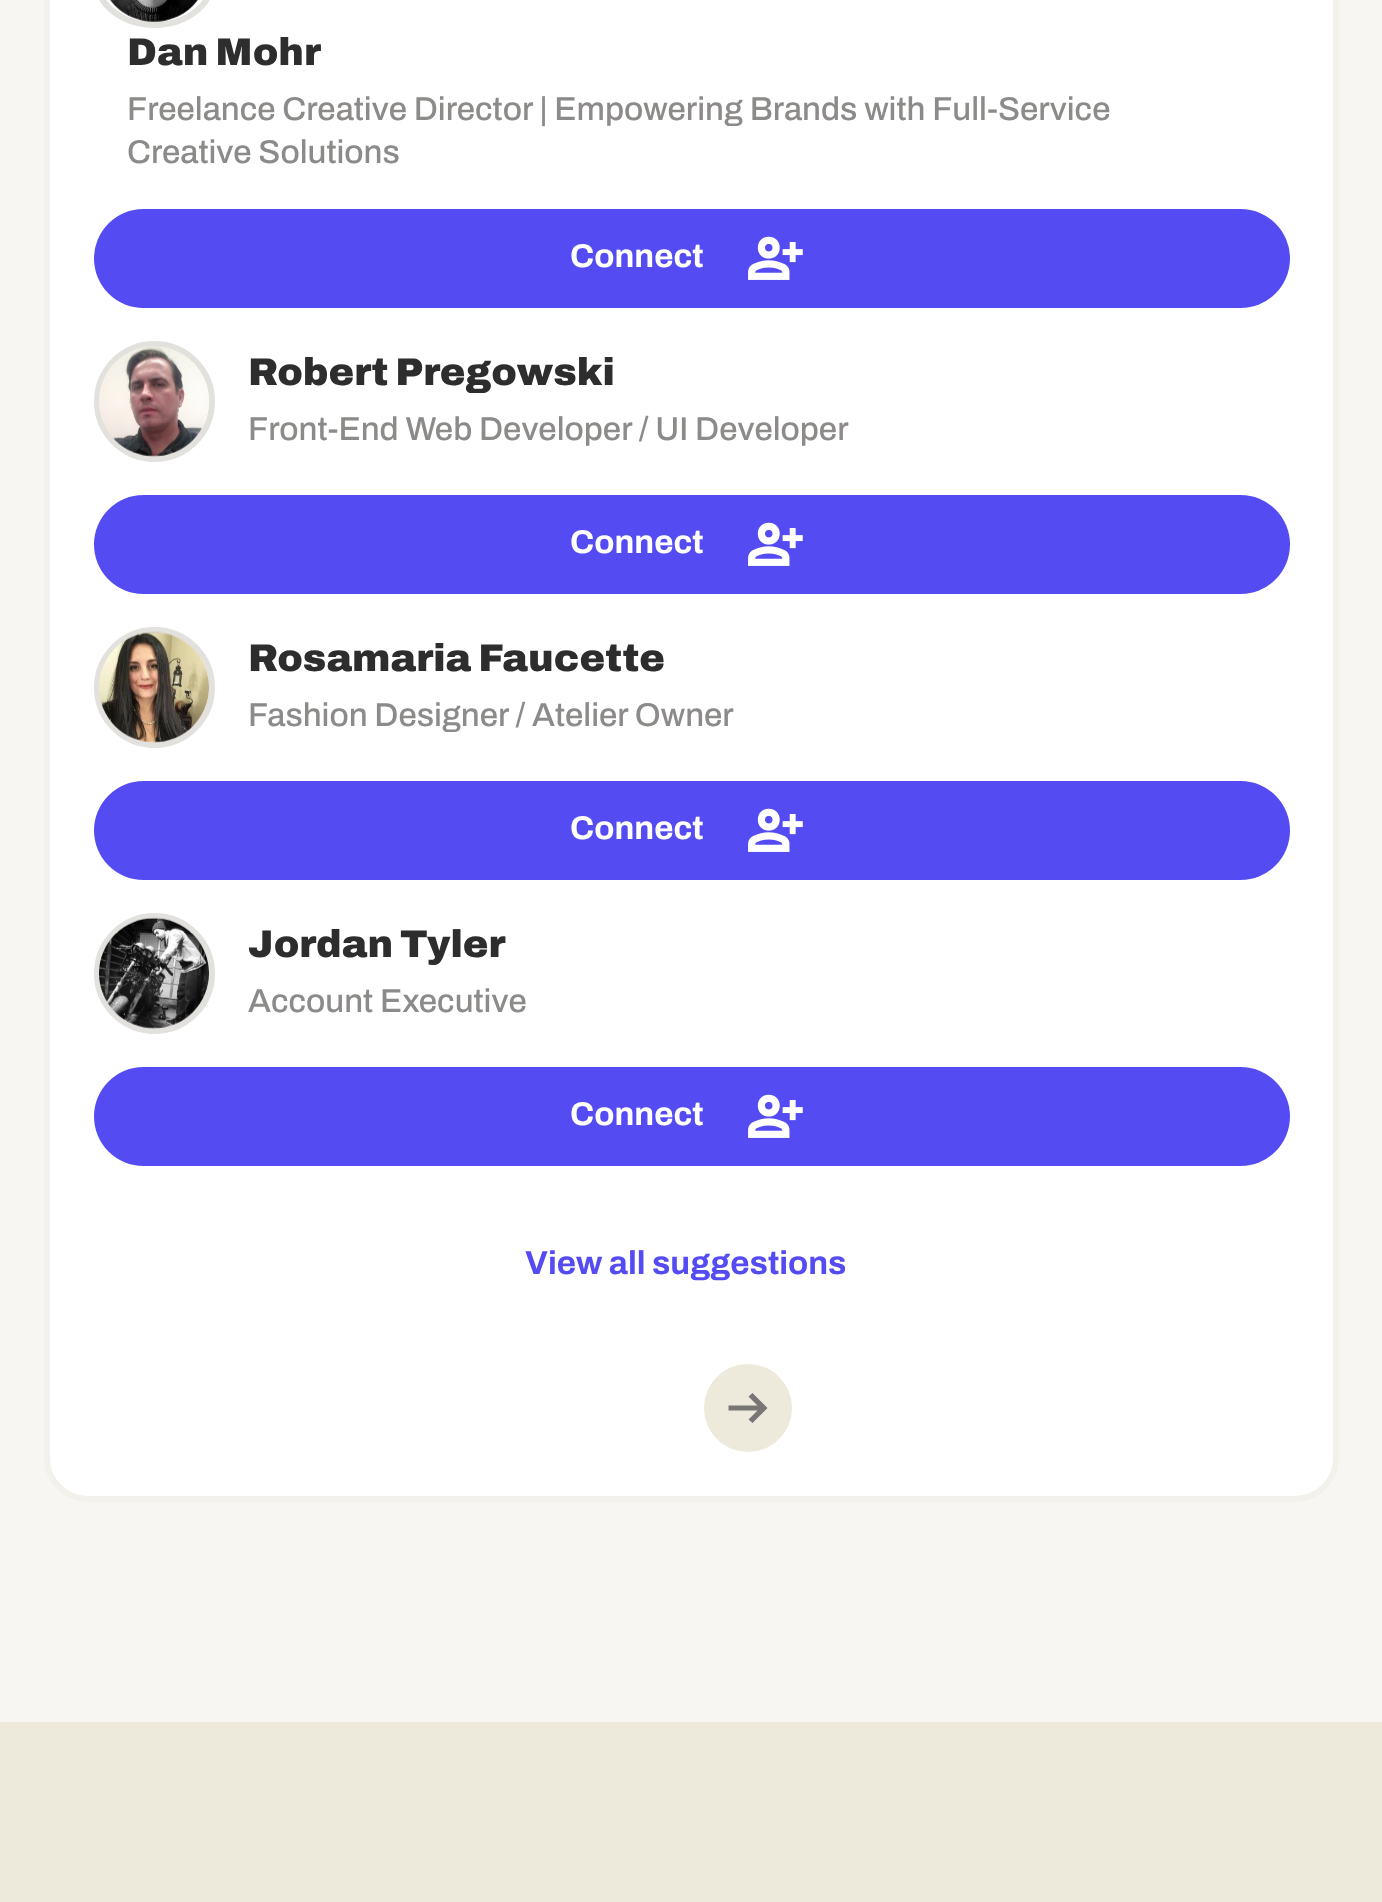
<svg xmlns="http://www.w3.org/2000/svg" width="1382" height="1902">
<rect width="100%" height="100%" fill="#f7f6f3"/>
<rect x="47" y="-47" width="1289" height="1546" rx="41" fill="#fff" stroke="#f3f1eb" stroke-width="6"/>
<rect x="97" y="-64" width="115" height="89" rx="57.5" fill="none" stroke="#e2e1de" stroke-width="6"/>
<image x="110" y="0" width="88" height="22" href="media/1.png"/>
<text x="127" y="65" style="font-family:'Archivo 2';font-size:38.5px;font-weight:600;fill:#2d2d2d">Dan Mohr</text>
<text x="127" y="120" style="font-family:'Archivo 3';font-size:33px;font-weight:600;fill:#8c8b8a">Freelance Creative Director | Empowering Brands with Full-Service</text>
<text x="127" y="163" style="font-family:'Archivo 3';font-size:33px;font-weight:600;fill:#8c8b8a">Creative Solutions</text>
<rect x="94" y="209" width="1196" height="99" rx="49.5" fill="#544cf2"/>
<text x="570" y="267" style="font-family:Archivo;font-size:33px;font-weight:600;fill:#fff">Connect</text>
<image x="748" y="236" width="55" height="44" href="media/2.png"/>
<circle cx="154.5" cy="401.5" r="57.5" fill="none" stroke="#e2e1de" stroke-width="6"/>
<image x="99" y="346" width="110" height="111" href="media/3.png"/>
<text x="248" y="385" style="font-family:'Archivo 2';font-size:38.5px;font-weight:600;fill:#2d2d2d">Robert Pregowski</text>
<text x="248" y="440" style="font-family:'Archivo 3';font-size:33px;font-weight:600;fill:#8c8b8a">Front-End Web Developer / UI Developer</text>
<rect x="94" y="495" width="1196" height="99" rx="49.5" fill="#544cf2"/>
<text x="570" y="553" style="font-family:Archivo;font-size:33px;font-weight:600;fill:#fff">Connect</text>
<image x="748" y="522" width="55" height="44" href="media/2.png"/>
<circle cx="154.5" cy="687.5" r="57.5" fill="none" stroke="#e2e1de" stroke-width="6"/>
<image x="99" y="631" width="110" height="112" href="media/4.png"/>
<text x="248" y="671" style="font-family:'Archivo 2';font-size:38.5px;font-weight:600;fill:#2d2d2d">Rosamaria Faucette</text>
<text x="248" y="726" style="font-family:'Archivo 3';font-size:33px;font-weight:600;fill:#8c8b8a">Fashion Designer / Atelier Owner</text>
<rect x="94" y="781" width="1196" height="99" rx="49.5" fill="#544cf2"/>
<text x="570" y="839" style="font-family:Archivo;font-size:33px;font-weight:600;fill:#fff">Connect</text>
<image x="748" y="808" width="55" height="44" href="media/2.png"/>
<circle cx="154.5" cy="973.5" r="57.5" fill="none" stroke="#e2e1de" stroke-width="6"/>
<image x="99" y="917" width="110" height="112" href="media/5.png"/>
<text x="248" y="957" style="font-family:'Archivo 2';font-size:38.5px;font-weight:600;fill:#2d2d2d">Jordan Tyler</text>
<text x="248" y="1012" style="font-family:'Archivo 3';font-size:33px;font-weight:600;fill:#8c8b8a">Account Executive</text>
<rect x="94" y="1067" width="1196" height="99" rx="49.5" fill="#544cf2"/>
<text x="570" y="1125" style="font-family:Archivo;font-size:33px;font-weight:600;fill:#fff">Connect</text>
<image x="748" y="1094" width="55" height="44" href="media/2.png"/>
<text x="525" y="1274" style="font-family:Archivo;font-size:33px;font-weight:600;fill:#544cf2">View all suggestions</text>
<circle cx="748" cy="1408" r="44" fill="#ede9db"/>
<path d="M752.5 1423l-4-3.5l9-9h-29v-5h29l-9-9l4-3.5l15 15z" fill="#777675"/>
<rect y="1722" width="1382" height="180" fill="#ede9db"/>
</svg>
